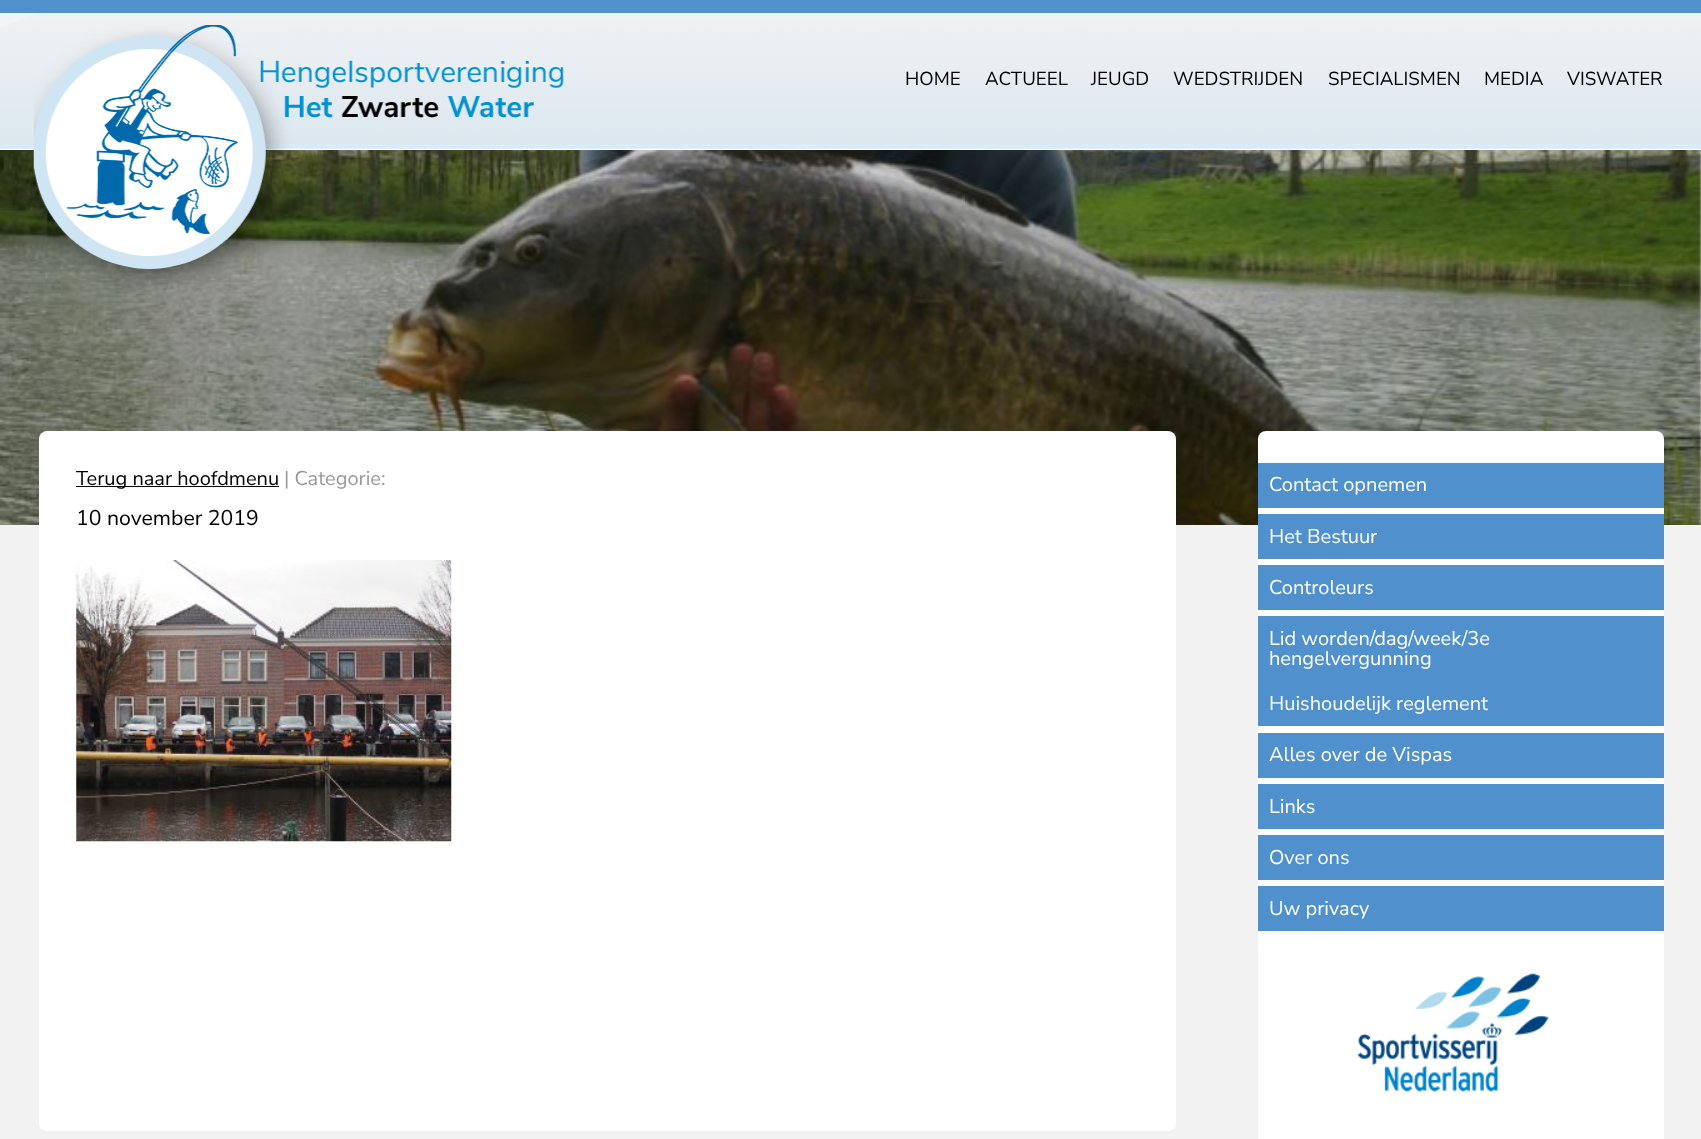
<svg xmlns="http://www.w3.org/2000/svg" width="1701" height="1139">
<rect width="100%" height="100%" fill="#f2f2f2"/>
<rect y="148" width="1701" height="252" fill="#fff"/>
<image x="0" y="13" width="1701" height="136" href="media/1.png"/>
<rect width="1701" height="13" fill="#5090cd"/>
<image x="0" y="150" width="1701" height="375" href="media/3.png"/>
<image x="33" y="25" width="531" height="265" href="media/2.png"/>
<text x="905" y="85" style="font-family:Nunito Sans;font-size:18.75px;fill:#000">HOME</text>
<text x="985" y="85" style="font-family:Nunito Sans;font-size:18.75px;fill:#000">ACTUEEL</text>
<text x="1091" y="85" style="font-family:Nunito Sans;font-size:18.75px;fill:#000">JEUGD</text>
<text x="1173" y="85" style="font-family:Nunito Sans;font-size:18.75px;fill:#000">WEDSTRIJDEN</text>
<text x="1328" y="85" style="font-family:Nunito Sans;font-size:18.75px;fill:#000">SPECIALISMEN</text>
<text x="1484" y="85" style="font-family:Nunito Sans;font-size:18.75px;fill:#000">MEDIA</text>
<text x="1567" y="85" style="font-family:Nunito Sans;font-size:18.75px;fill:#000">VISWATER</text>
<rect x="39" y="431" width="1137" height="700" rx="8" fill="#fff"/>
<rect x="76" y="486" width="203" height="1" fill="#000"/>
<text x="76" y="485" style="font-family:Nunito Sans;font-size:20px;fill:#000">Terug naar hoofdmenu</text>
<text x="284" y="485" style="font-family:Nunito Sans;font-size:20px;fill:#999">| Categorie:</text>
<text x="76" y="525" style="font-family:Nunito Sans;font-size:21.25px;fill:#000">10 november 2019</text>
<image x="76" y="560" width="376" height="282" href="media/4.png"/>
<rect x="1258" y="431" width="406" height="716" rx="8" fill="#fff"/>
<rect x="1258" y="463" width="406" height="45" fill="#5090cd"/>
<text x="1269" y="491" style="font-family:Nunito Sans;font-size:20px;fill:#fff">Contact opnemen</text>
<rect x="1258" y="514" width="406" height="45" fill="#5090cd"/>
<text x="1269" y="543" style="font-family:Nunito Sans;font-size:20px;fill:#fff">Het Bestuur</text>
<rect x="1258" y="565" width="406" height="45" fill="#5090cd"/>
<text x="1269" y="594" style="font-family:Nunito Sans;font-size:20px;fill:#fff">Controleurs</text>
<rect x="1258" y="616" width="406" height="110" fill="#5090cd"/>
<text x="1269" y="645" style="font-family:Nunito Sans;font-size:20px;fill:#fff">Lid worden/dag/week/3e</text>
<text x="1269" y="665" style="font-family:Nunito Sans;font-size:20px;fill:#fff">hengelvergunning</text>
<text x="1269" y="710" style="font-family:Nunito Sans;font-size:20px;fill:#fff">Huishoudelijk reglement</text>
<rect x="1258" y="733" width="406" height="45" fill="#5090cd"/>
<text x="1269" y="761" style="font-family:Nunito Sans;font-size:20px;fill:#fff">Alles over de Vispas</text>
<rect x="1258" y="784" width="406" height="45" fill="#5090cd"/>
<text x="1269" y="813" style="font-family:Nunito Sans;font-size:20px;fill:#fff">Links</text>
<rect x="1258" y="835" width="406" height="45" fill="#5090cd"/>
<text x="1269" y="864" style="font-family:Nunito Sans;font-size:20px;fill:#fff">Over ons</text>
<rect x="1258" y="886" width="406" height="45" fill="#5090cd"/>
<text x="1269" y="915" style="font-family:Nunito Sans;font-size:20px;fill:#fff">Uw privacy</text>
<image x="1357" y="973" width="192" height="119" href="media/5.png"/>
</svg>
